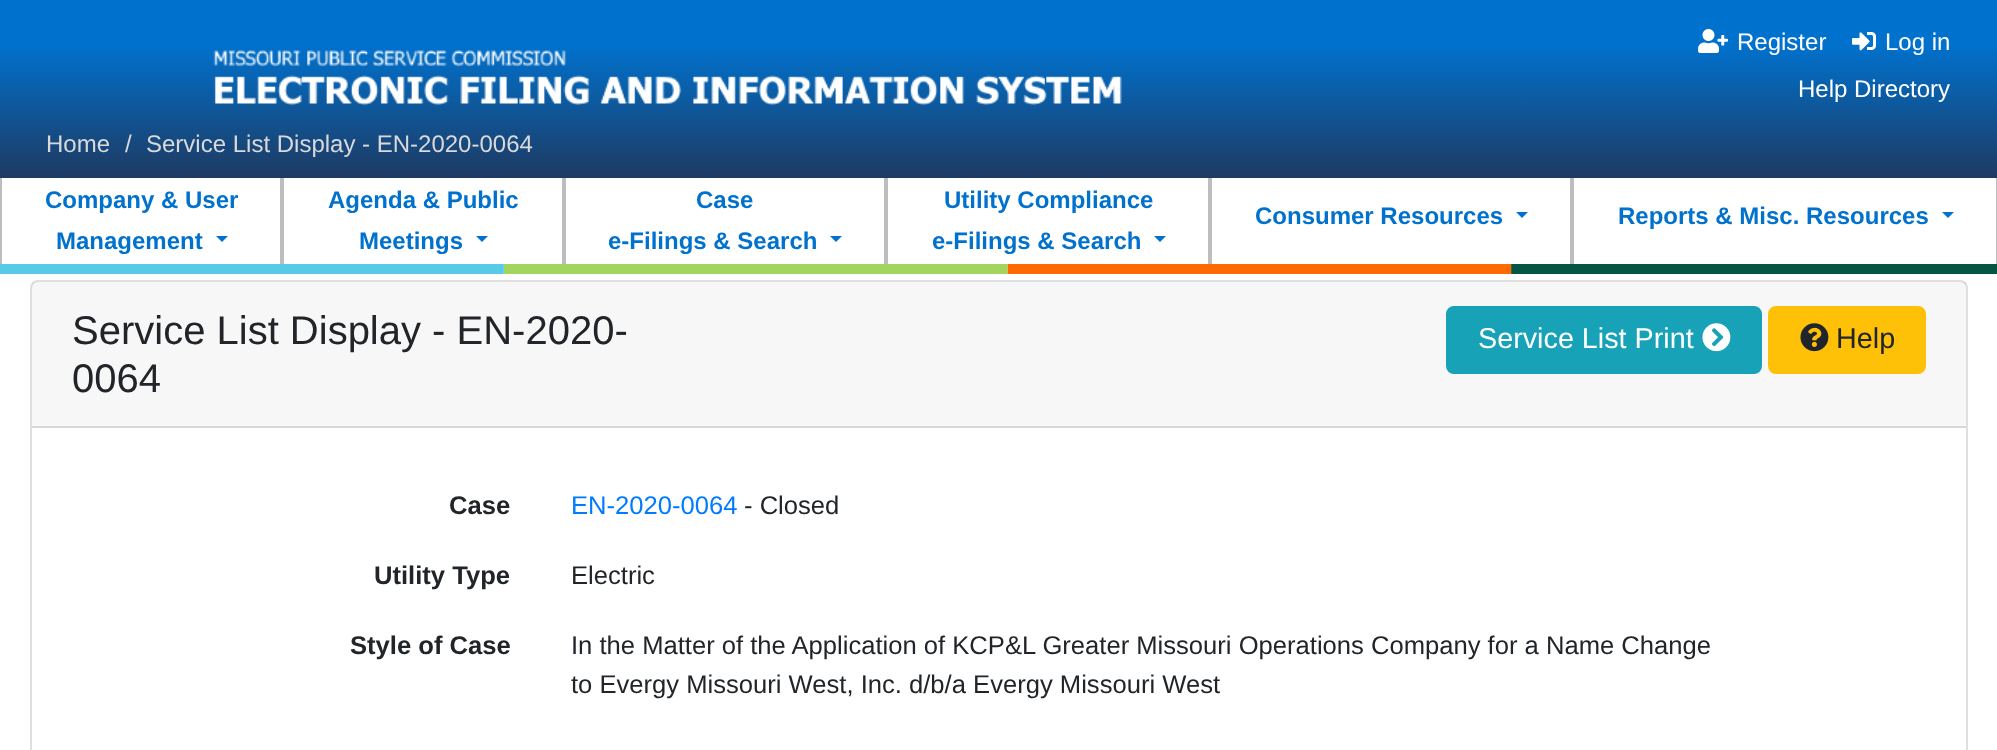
<svg xmlns="http://www.w3.org/2000/svg" width="1997" height="750">
<defs>
<linearGradient id="g1" gradientUnits="userSpaceOnUse" x1="999" y1="0" x2="999" y2="178"><stop offset="0" stop-color="#0072ce"/><stop offset="0.24" stop-color="#0072ce"/><stop offset="1" stop-color="#1e3a62"/></linearGradient>
</defs>
<rect width="100%" height="100%" fill="#fff"/>
<rect width="1997" height="178" fill="url(#g1)"/>
<image x="213" y="50" width="909" height="56" href="media/1.png"/>
<image x="1698" y="29" width="30" height="24" href="media/2.png"/>
<text x="1737" y="50" style="font-family:Liberation Sans;font-size:24px;fill:#fff">Register</text>
<image x="1852" y="32" width="24" height="19" href="media/3.png"/>
<text x="1885" y="50" style="font-family:Liberation Sans;font-size:24px;fill:#fff">Log in</text>
<text x="1798" y="97" style="font-family:Liberation Sans;font-size:24px;fill:#fff">Help Directory</text>
<text x="46" y="152" style="font-family:Liberation Sans;font-size:24px;fill:#d9d9d9">Home</text>
<text x="125" y="152" style="font-family:Liberation Sans;font-size:24px;fill:#d9d9d9">/</text>
<text x="146" y="152" style="font-family:Liberation Sans;font-size:24px;fill:#d9d9d9">Service List Display - EN-2020-0064</text>
<rect x="280" y="178" width="4" height="86" fill="#bdbdbd"/>
<rect y="178" width="2" height="86" fill="#bdbdbd"/>
<text x="45" y="208" style="font-family:Liberation Sans;font-size:24px;font-weight:bold;fill:#0072ce">Company &amp; User</text>
<text x="56" y="249" style="font-family:Liberation Sans;font-size:24px;font-weight:bold;fill:#0072ce">Management</text>
<path d="M216 236h12l-6 6z" fill="#0072ce"/>
<rect x="562" y="178" width="4" height="86" fill="#bdbdbd"/>
<text x="328" y="208" style="font-family:Liberation Sans;font-size:24px;font-weight:bold;fill:#0072ce">Agenda &amp; Public</text>
<text x="359" y="249" style="font-family:Liberation Sans;font-size:24px;font-weight:bold;fill:#0072ce">Meetings</text>
<path d="M476 236h12l-6 6z" fill="#0072ce"/>
<rect x="884" y="178" width="4" height="86" fill="#bdbdbd"/>
<text x="696" y="208" style="font-family:Liberation Sans;font-size:24px;font-weight:bold;fill:#0072ce">Case</text>
<text x="608" y="249" style="font-family:Liberation Sans;font-size:24px;font-weight:bold;fill:#0072ce">e-Filings &amp; Search</text>
<path d="M830 236h12l-6 6z" fill="#0072ce"/>
<rect x="1208" y="178" width="4" height="86" fill="#bdbdbd"/>
<text x="944" y="208" style="font-family:Liberation Sans;font-size:24px;font-weight:bold;fill:#0072ce">Utility Compliance</text>
<text x="932" y="249" style="font-family:Liberation Sans;font-size:24px;font-weight:bold;fill:#0072ce">e-Filings &amp; Search</text>
<path d="M1154 236h12l-6 6z" fill="#0072ce"/>
<rect x="1570" y="178" width="4" height="86" fill="#bdbdbd"/>
<text x="1255" y="224" style="font-family:Liberation Sans;font-size:24px;font-weight:bold;fill:#0072ce">Consumer Resources</text>
<path d="M1516 212h12l-6 6z" fill="#0072ce"/>
<rect x="1996" y="178" width="1" height="86" fill="#bdbdbd"/>
<text x="1618" y="224" style="font-family:Liberation Sans;font-size:24px;font-weight:bold;fill:#0072ce">Reports &amp; Misc. Resources</text>
<path d="M1942 212h12l-6 6z" fill="#0072ce"/>
<image x="0" y="264" width="1997" height="10" href="media/4.png"/>
<rect x="31" y="281" width="1936" height="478" rx="7" fill="none" stroke="#dfdfdf" stroke-width="2"/>
<rect x="32" y="282" width="1934" height="144" fill="#00000008"/>
<rect x="32" y="426" width="1934" height="2" fill="#d8d8d8"/>
<text x="72" y="344" style="font-family:Liberation Sans;font-size:40px;fill:#212529">Service List Display - EN-2020-</text>
<text x="72" y="392" style="font-family:Liberation Sans;font-size:40px;fill:#212529">0064</text>
<rect x="1447" y="307" width="314" height="66" rx="7" fill="#17a2b8" stroke="#17a2b8" stroke-width="2"/>
<text x="1478" y="348" style="font-family:Liberation Sans;font-size:28.75px;fill:#fff">Service List Print</text>
<image x="1702" y="323" width="29" height="29" href="media/5.png"/>
<rect x="1769" y="307" width="156" height="66" rx="7" fill="#ffc107" stroke="#ffc107" stroke-width="2"/>
<image x="1800" y="323" width="29" height="29" href="media/6.png"/>
<text x="1836" y="348" style="font-family:Liberation Sans;font-size:28.75px;fill:#212529">Help</text>
<text x="449" y="514" style="font-family:Liberation Sans;font-size:25.6px;font-weight:bold;fill:#212529">Case</text>
<text x="571" y="514" style="font-family:Liberation Sans;font-size:25.6px;fill:#007bff">EN-2020-0064</text>
<text x="744" y="514" style="font-family:Liberation Sans;font-size:25.6px;fill:#212529">- Closed</text>
<text x="374" y="584" style="font-family:Liberation Sans;font-size:25.6px;font-weight:bold;fill:#212529">Utility Type</text>
<text x="571" y="584" style="font-family:Liberation Sans;font-size:25.6px;fill:#212529">Electric</text>
<text x="350" y="654" style="font-family:Liberation Sans;font-size:25.6px;font-weight:bold;fill:#212529">Style of Case</text>
<text x="571" y="654" style="font-family:Liberation Sans;font-size:25.6px;fill:#212529">In the Matter of the Application of KCP&amp;L Greater Missouri Operations Company for a Name Change</text>
<text x="571" y="693" style="font-family:Liberation Sans;font-size:25.6px;fill:#212529">to Evergy Missouri West, Inc. d/b/a Evergy Missouri West</text>
</svg>
